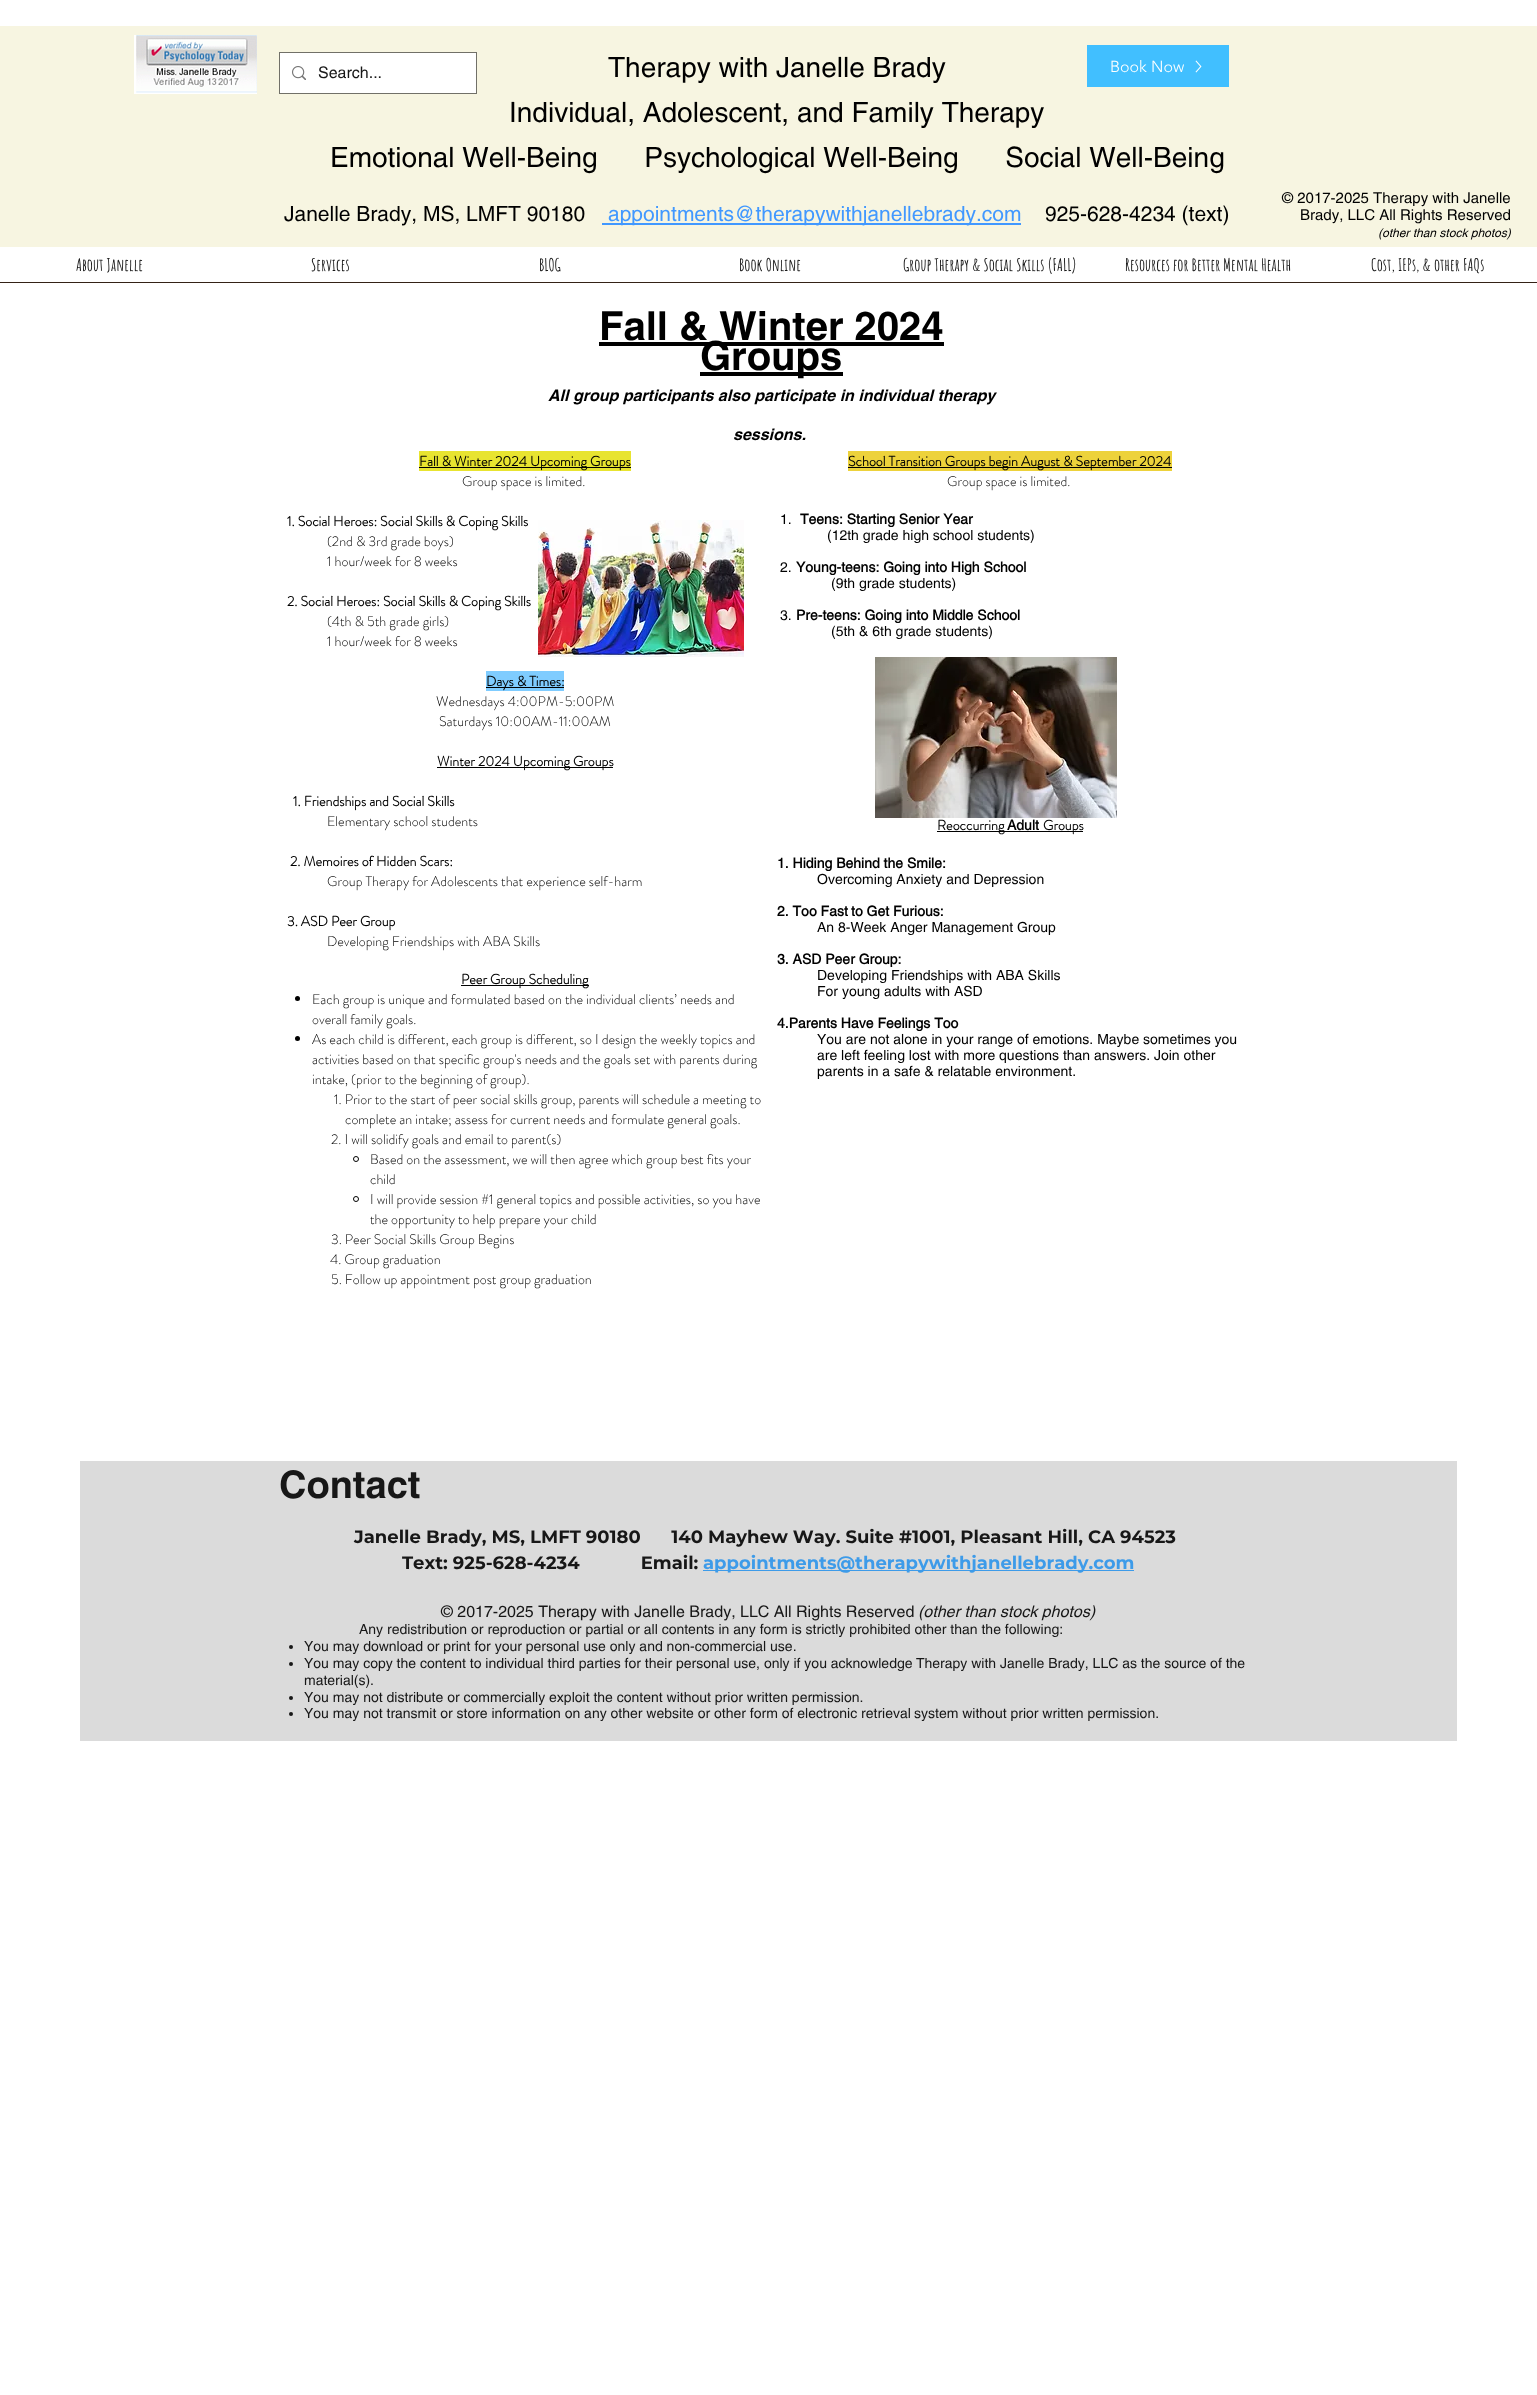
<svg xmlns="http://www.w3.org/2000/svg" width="1537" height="2395">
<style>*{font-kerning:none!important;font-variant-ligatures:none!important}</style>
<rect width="100%" height="100%" fill="#fff"/>
<rect y="26" width="1537" height="221" fill="#f7f5e1"/>
<image x="134" y="35" width="123" height="59" href="media/1.png"/>
<text x="608" y="77" style="font-family:helvetica;font-size:28px;fill:#000">Therapy with Janelle Brady</text>
<text x="509" y="122" style="font-family:helvetica;font-size:28px;fill:#000">Individual, Adolescent, and Family Therapy</text>
<text x="330" y="167" style="font-family:helvetica;font-size:28px;fill:#000" xml:space="preserve">Emotional Well-Being      Psychological Well-Being      Social Well-Being</text>
<rect x="279.5" y="52.5" width="197" height="41" fill="none" stroke="#717068"/>
<rect x="280" y="53" width="196" height="40" fill="#fff"/>
<image x="292" y="66" width="14" height="14" href="media/2.png"/>
<text x="318" y="78" style="font-family:helvetica;font-size:16px;fill:#171717">Search...</text>
<rect x="1087" y="45" width="142" height="42" fill="#41bfff"/>
<text x="1110" y="72" style="font-family:'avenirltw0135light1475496';font-size:16px;font-weight:300;fill:#fff">Book Now</text>
<image x="1195" y="60" width="7" height="13" href="media/3.png"/>
<text x="284" y="221" style="font-family:helvetica;font-size:21px;fill:#000">Janelle Brady, MS, LMFT 90180</text>
<rect x="602" y="223" width="419" height="2" fill="#4198ff"/>
<text x="608" y="221" style="font-family:helvetica;font-size:21px;fill:#4198ff">appointments@therapywithjanellebrady.com</text>
<text x="1045" y="221" style="font-family:helvetica;font-size:21px;fill:#000">925-628-4234 (text)</text>
<text x="1282" y="203" style="font-family:helvetica;font-size:15px;fill:#000">© 2017-2025 Therapy with Janelle</text>
<text x="1300" y="220" style="font-family:helvetica;font-size:15px;fill:#000">Brady, LLC All Rights Reserved</text>
<text x="1378" y="237" style="font-family:helvetica;font-size:12px;font-style:italic;fill:#000">(other than stock photos)</text>
<text x="76" y="271" style="font-family:Amatic SC;font-size:17px;font-weight:bold;fill:#171717">About Janelle</text>
<text x="311" y="271" style="font-family:Amatic SC;font-size:17px;font-weight:bold;fill:#171717">Services</text>
<text x="539" y="271" style="font-family:Amatic SC;font-size:17px;font-weight:bold;fill:#171717">BLOG</text>
<text x="739" y="271" style="font-family:Amatic SC;font-size:17px;font-weight:bold;fill:#171717">Book Online</text>
<text x="903" y="271" style="font-family:Amatic SC;font-size:17px;font-weight:bold;fill:#171717">Group Therapy &amp; Social Skills (FALL)</text>
<text x="1125" y="271" style="font-family:Amatic SC;font-size:17px;font-weight:bold;fill:#171717">Resources for Better Mental Health</text>
<text x="1371" y="271" style="font-family:Amatic SC;font-size:17px;font-weight:bold;fill:#171717">Cost, IEPs, &amp; other FAQs</text>
<rect y="282" width="1537" height="1" fill="#342216"/>
<text x="599" y="340" style="font-family:helvetica;font-size:40px;font-weight:bold;fill:#000">Fall &amp; Winter 2024</text>
<rect x="599" y="342" width="345" height="4" fill="#000"/>
<rect x="700" y="372" width="143" height="4" fill="#000"/>
<text x="700" y="370" style="font-family:helvetica;font-size:40px;font-weight:bold;fill:#000">Groups</text>
<text x="548" y="401" style="font-family:helvetica;font-size:16px;font-weight:bold;font-style:italic;fill:#000">All group participants also participate in individual therapy</text>
<text x="733" y="440" style="font-family:helvetica;font-size:16px;font-weight:bold;font-style:italic;fill:#000">sessions.</text>
<rect x="419" y="451" width="212" height="20" fill="#e8e430"/>
<rect x="419" y="467" width="212" height="1" fill="#000"/>
<text x="419" y="466" style="font-family:'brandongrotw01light';font-size:14px;font-weight:bold;fill:#000">Fall &amp; Winter 2024 Upcoming Groups</text>
<text x="462" y="486" style="font-family:'brandongrotw01light';font-size:14px;font-weight:300;fill:#000">Group space is limited.</text>
<text x="287" y="526" style="font-family:'brandongrotw01light';font-size:14px;font-weight:bold;fill:#000">1. Social Heroes: Social Skills &amp; Coping Skills</text>
<text x="327" y="546" style="font-family:'brandongrotw01light';font-size:14px;font-weight:300;fill:#000">(2nd &amp; 3rd grade boys)</text>
<text x="327" y="566" style="font-family:'brandongrotw01light';font-size:14px;font-weight:300;fill:#000">1 hour/week for 8 weeks</text>
<text x="287" y="606" style="font-family:'brandongrotw01light';font-size:14px;font-weight:bold;fill:#000">2. Social Heroes: Social Skills &amp; Coping Skills</text>
<text x="327" y="626" style="font-family:'brandongrotw01light';font-size:14px;font-weight:300;fill:#000">(4th &amp; 5th grade girls)</text>
<text x="327" y="646" style="font-family:'brandongrotw01light';font-size:14px;font-weight:300;fill:#000">1 hour/week for 8 weeks</text>
<rect x="486" y="671" width="78" height="20" fill="#7fccff"/>
<rect x="486" y="687" width="78" height="1" fill="#000"/>
<text x="486" y="686" style="font-family:'brandongrotw01light';font-size:14px;font-weight:bold;fill:#000">Days &amp; Times:</text>
<text x="436" y="706" style="font-family:'brandongrotw01light';font-size:14px;font-weight:300;fill:#000">Wednesdays 4:00PM-5:00PM</text>
<text x="439" y="726" style="font-family:'brandongrotw01light';font-size:14px;font-weight:300;fill:#000">Saturdays 10:00AM-11:00AM</text>
<rect x="437" y="767" width="176" height="1" fill="#000"/>
<text x="437" y="766" style="font-family:'brandongrotw01light';font-size:14px;font-weight:bold;fill:#000">Winter 2024 Upcoming Groups</text>
<text x="293" y="806" style="font-family:'brandongrotw01light';font-size:14px;font-weight:bold;fill:#000">1. Friendships and Social Skills</text>
<text x="327" y="826" style="font-family:'brandongrotw01light';font-size:14px;font-weight:300;fill:#000">Elementary school students</text>
<text x="290" y="866" style="font-family:'brandongrotw01light';font-size:14px;font-weight:bold;fill:#000">2. Memoires of Hidden Scars:</text>
<text x="327" y="886" style="font-family:'brandongrotw01light';font-size:14px;font-weight:300;fill:#000">Group Therapy for Adolescents that experience self-harm</text>
<text x="287" y="926" style="font-family:'brandongrotw01light';font-size:14px;font-weight:bold;fill:#000">3. ASD Peer Group</text>
<text x="327" y="946" style="font-family:'brandongrotw01light';font-size:14px;font-weight:300;fill:#000">Developing Friendships with ABA Skills</text>
<rect x="848" y="451" width="324" height="20" fill="#edd23b"/>
<rect x="848" y="467" width="324" height="1" fill="#000"/>
<text x="848" y="466" style="font-family:'brandongrotw01light';font-size:14px;font-weight:bold;fill:#000">School Transition Groups begin August &amp; September 2024</text>
<text x="947" y="486" style="font-family:'brandongrotw01light';font-size:14px;font-weight:300;fill:#000">Group space is limited.</text>
<text x="780" y="524" style="font-family:helvetica;font-size:14px;fill:#000">1.</text>
<text x="800" y="524" style="font-family:'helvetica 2';font-size:14px;font-weight:bold;fill:#000">Teens: Starting Senior Year</text>
<text x="827" y="540" style="font-family:helvetica;font-size:14px;fill:#000">(12th grade high school students)</text>
<text x="780" y="572" style="font-family:helvetica;font-size:14px;fill:#000">2.</text>
<text x="796" y="572" style="font-family:'helvetica 2';font-size:14px;font-weight:bold;fill:#000">Young-teens: Going into High School</text>
<text x="831" y="588" style="font-family:helvetica;font-size:14px;fill:#000">(9th grade students)</text>
<text x="780" y="620" style="font-family:helvetica;font-size:14px;fill:#000">3.</text>
<text x="796" y="620" style="font-family:'helvetica 2';font-size:14px;font-weight:bold;fill:#000">Pre-teens: Going into Middle School</text>
<text x="831" y="636" style="font-family:helvetica;font-size:14px;fill:#000">(5th &amp; 6th grade students)</text>
<rect x="937" y="831" width="146" height="1" fill="#000"/>
<text x="937" y="830" style="font-family:'brandongrotw01light';font-size:14px;font-weight:bold;fill:#000">Reoccurring</text>
<text x="1007" y="830" style="font-family:'helvetica 2';font-size:14px;font-weight:bold;fill:#000">Adult</text>
<text x="1043" y="830" style="font-family:'brandongrotw01light';font-size:14px;font-weight:bold;fill:#000">Groups</text>
<text x="777" y="868" style="font-family:'helvetica 2';font-size:14px;font-weight:bold;fill:#000">1. Hiding Behind the Smile:</text>
<text x="817" y="884" style="font-family:helvetica;font-size:14px;fill:#000">Overcoming Anxiety and Depression</text>
<text x="777" y="916" style="font-family:'helvetica 2';font-size:14px;font-weight:bold;fill:#000">2. Too Fast</text>
<text x="851" y="916" style="font-family:'helvetica 2';font-size:14px;font-weight:bold;fill:#000">to Get Furious:</text>
<text x="817" y="932" style="font-family:helvetica;font-size:14px;fill:#000">An 8-Week Anger Management Group</text>
<text x="777" y="964" style="font-family:'helvetica 2';font-size:14px;font-weight:bold;fill:#000">3. ASD Peer Group:</text>
<text x="817" y="980" style="font-family:helvetica;font-size:14px;fill:#000">Developing Friendships with ABA Skills</text>
<text x="817" y="996" style="font-family:helvetica;font-size:14px;fill:#000">For young adults with ASD</text>
<text x="777" y="1028" style="font-family:'helvetica 2';font-size:14px;font-weight:bold;fill:#000">4.Parents Have Feelings Too</text>
<text x="817" y="1044" style="font-family:helvetica;font-size:14px;fill:#000">You are not alone in your range of emotions. Maybe</text>
<text x="1143" y="1044" style="font-family:helvetica;font-size:14px;fill:#000">sometimes you</text>
<text x="817" y="1060" style="font-family:helvetica;font-size:14px;fill:#000">are left feeling lost with more questions than answers. Join other</text>
<text x="817" y="1076" style="font-family:helvetica;font-size:14px;fill:#000">parents in a safe &amp; relatable environment.</text>
<image x="538" y="520" width="206" height="137" href="media/4.png"/>
<image x="875" y="657" width="242" height="161" href="media/5.png"/>
<rect x="461" y="985" width="128" height="1" fill="#000"/>
<text x="461" y="984" style="font-family:'brandongrotw01light';font-size:14px;font-weight:bold;fill:#000">Peer Group Scheduling</text>
<circle cx="297.5" cy="998.5" r="2.5" fill="#000"/>
<text x="312" y="1004" style="font-family:'brandongrotw01light';font-size:14px;font-weight:300;fill:#000">Each group is unique and formulated based on the individual clients’ needs and</text>
<text x="312" y="1024" style="font-family:'brandongrotw01light';font-size:14px;font-weight:300;fill:#000">overall family goals.</text>
<circle cx="297.5" cy="1038.5" r="2.5" fill="#000"/>
<text x="312" y="1044" style="font-family:'brandongrotw01light';font-size:14px;font-weight:300;fill:#000">As each child is different, each group is different, so I design the weekly topics and</text>
<text x="312" y="1064" style="font-family:'brandongrotw01light';font-size:14px;font-weight:300;fill:#000">activities based on that specific group's needs and the goals set with parents during</text>
<text x="312" y="1084" style="font-family:'brandongrotw01light';font-size:14px;font-weight:300;fill:#000">intake, (prior to the beginning of group).</text>
<text x="334" y="1104" style="font-family:'brandongrotw01light';font-size:14px;font-weight:300;fill:#000">1. Prior to the start of peer social skills group, parents will schedule a meeting to</text>
<text x="345" y="1124" style="font-family:'brandongrotw01light';font-size:14px;font-weight:300;fill:#000">complete an intake; assess for current needs and formulate general goals.</text>
<text x="331" y="1144" style="font-family:'brandongrotw01light';font-size:14px;font-weight:300;fill:#000">2. I will solidify goals and email to parent(s)</text>
<circle cx="356" cy="1159" r="2.5" fill="none" stroke="#000"/>
<text x="370" y="1164" style="font-family:'brandongrotw01light';font-size:14px;font-weight:300;fill:#000">Based on the assessment, we will then agree which group best fits your</text>
<text x="370" y="1184" style="font-family:'brandongrotw01light';font-size:14px;font-weight:300;fill:#000">child</text>
<circle cx="356" cy="1199" r="2.5" fill="none" stroke="#000"/>
<text x="370" y="1204" style="font-family:'brandongrotw01light';font-size:14px;font-weight:300;fill:#000">I will provide session #1 general topics and possible activities, so you have</text>
<text x="370" y="1224" style="font-family:'brandongrotw01light';font-size:14px;font-weight:300;fill:#000">the opportunity to help prepare your child</text>
<text x="331" y="1244" style="font-family:'brandongrotw01light';font-size:14px;font-weight:300;fill:#000">3. Peer Social Skills Group Begins</text>
<text x="330" y="1264" style="font-family:'brandongrotw01light';font-size:14px;font-weight:300;fill:#000">4. Group graduation</text>
<text x="331" y="1284" style="font-family:'brandongrotw01light';font-size:14px;font-weight:300;fill:#000">5. Follow up appointment post group graduation</text>
<rect x="80" y="1461" width="1377" height="280" fill="#dbdbdb"/>
<text x="279" y="1498" style="font-family:helvetica;font-size:38px;font-weight:bold;fill:#171717">Contact</text>
<text x="354" y="1543" style="font-family:Montserrat;font-size:18px;font-weight:bold;fill:#171717" xml:space="preserve">Janelle Brady, MS, LMFT 90180      140 Mayhew Way. Suite #1001, Pleasant Hill, CA 94523</text>
<text x="402" y="1569" style="font-family:Montserrat;font-size:18px;font-weight:bold;fill:#171717" xml:space="preserve">Text: 925-628-4234            Email:</text>
<rect x="703" y="1570" width="431" height="1" fill="#3d9be9"/>
<text x="703" y="1569" style="font-family:Montserrat;font-size:18px;font-weight:bold;fill:#3d9be9">appointments@therapywithjanellebrady.com</text>
<text x="441" y="1617" style="font-family:helvetica;font-size:16px;fill:#171717">© 2017-2025 Therapy with Janelle Brady, LLC All Rights Reserved</text>
<text x="918" y="1617" style="font-family:helvetica;font-size:16px;font-style:italic;fill:#171717">(other than stock photos)</text>
<text x="359" y="1634" style="font-family:helvetica;font-size:14px;fill:#171717">Any redistribution or reproduction or partial or all contents in any form is strictly prohibited other than the following:</text>
<circle cx="291" cy="1647" r="2" fill="#171717"/>
<text x="304" y="1651" style="font-family:helvetica;font-size:14px;fill:#171717">You may download or print for your personal use only and non-commercial use.</text>
<circle cx="291" cy="1664" r="2" fill="#171717"/>
<text x="304" y="1668" style="font-family:helvetica;font-size:14px;fill:#171717">You may copy the content to individual third parties for their personal use, only if you acknowledge</text>
<text x="916" y="1668" style="font-family:helvetica;font-size:14px;fill:#171717">Therapy with Janelle Brady, LLC as the source of the</text>
<text x="304" y="1685" style="font-family:helvetica;font-size:14px;fill:#171717">material(s).</text>
<circle cx="291" cy="1698" r="2" fill="#171717"/>
<text x="304" y="1702" style="font-family:helvetica;font-size:14px;fill:#171717">You may not distribute or commercially exploit the content without prior written permission.</text>
<circle cx="291" cy="1714" r="2" fill="#171717"/>
<text x="304" y="1718" style="font-family:helvetica;font-size:14px;fill:#171717">You may not transmit or store information on any other website or other form of electronic retrieval</text>
<text x="914" y="1718" style="font-family:helvetica;font-size:14px;fill:#171717">system without prior written permission.</text>
</svg>
